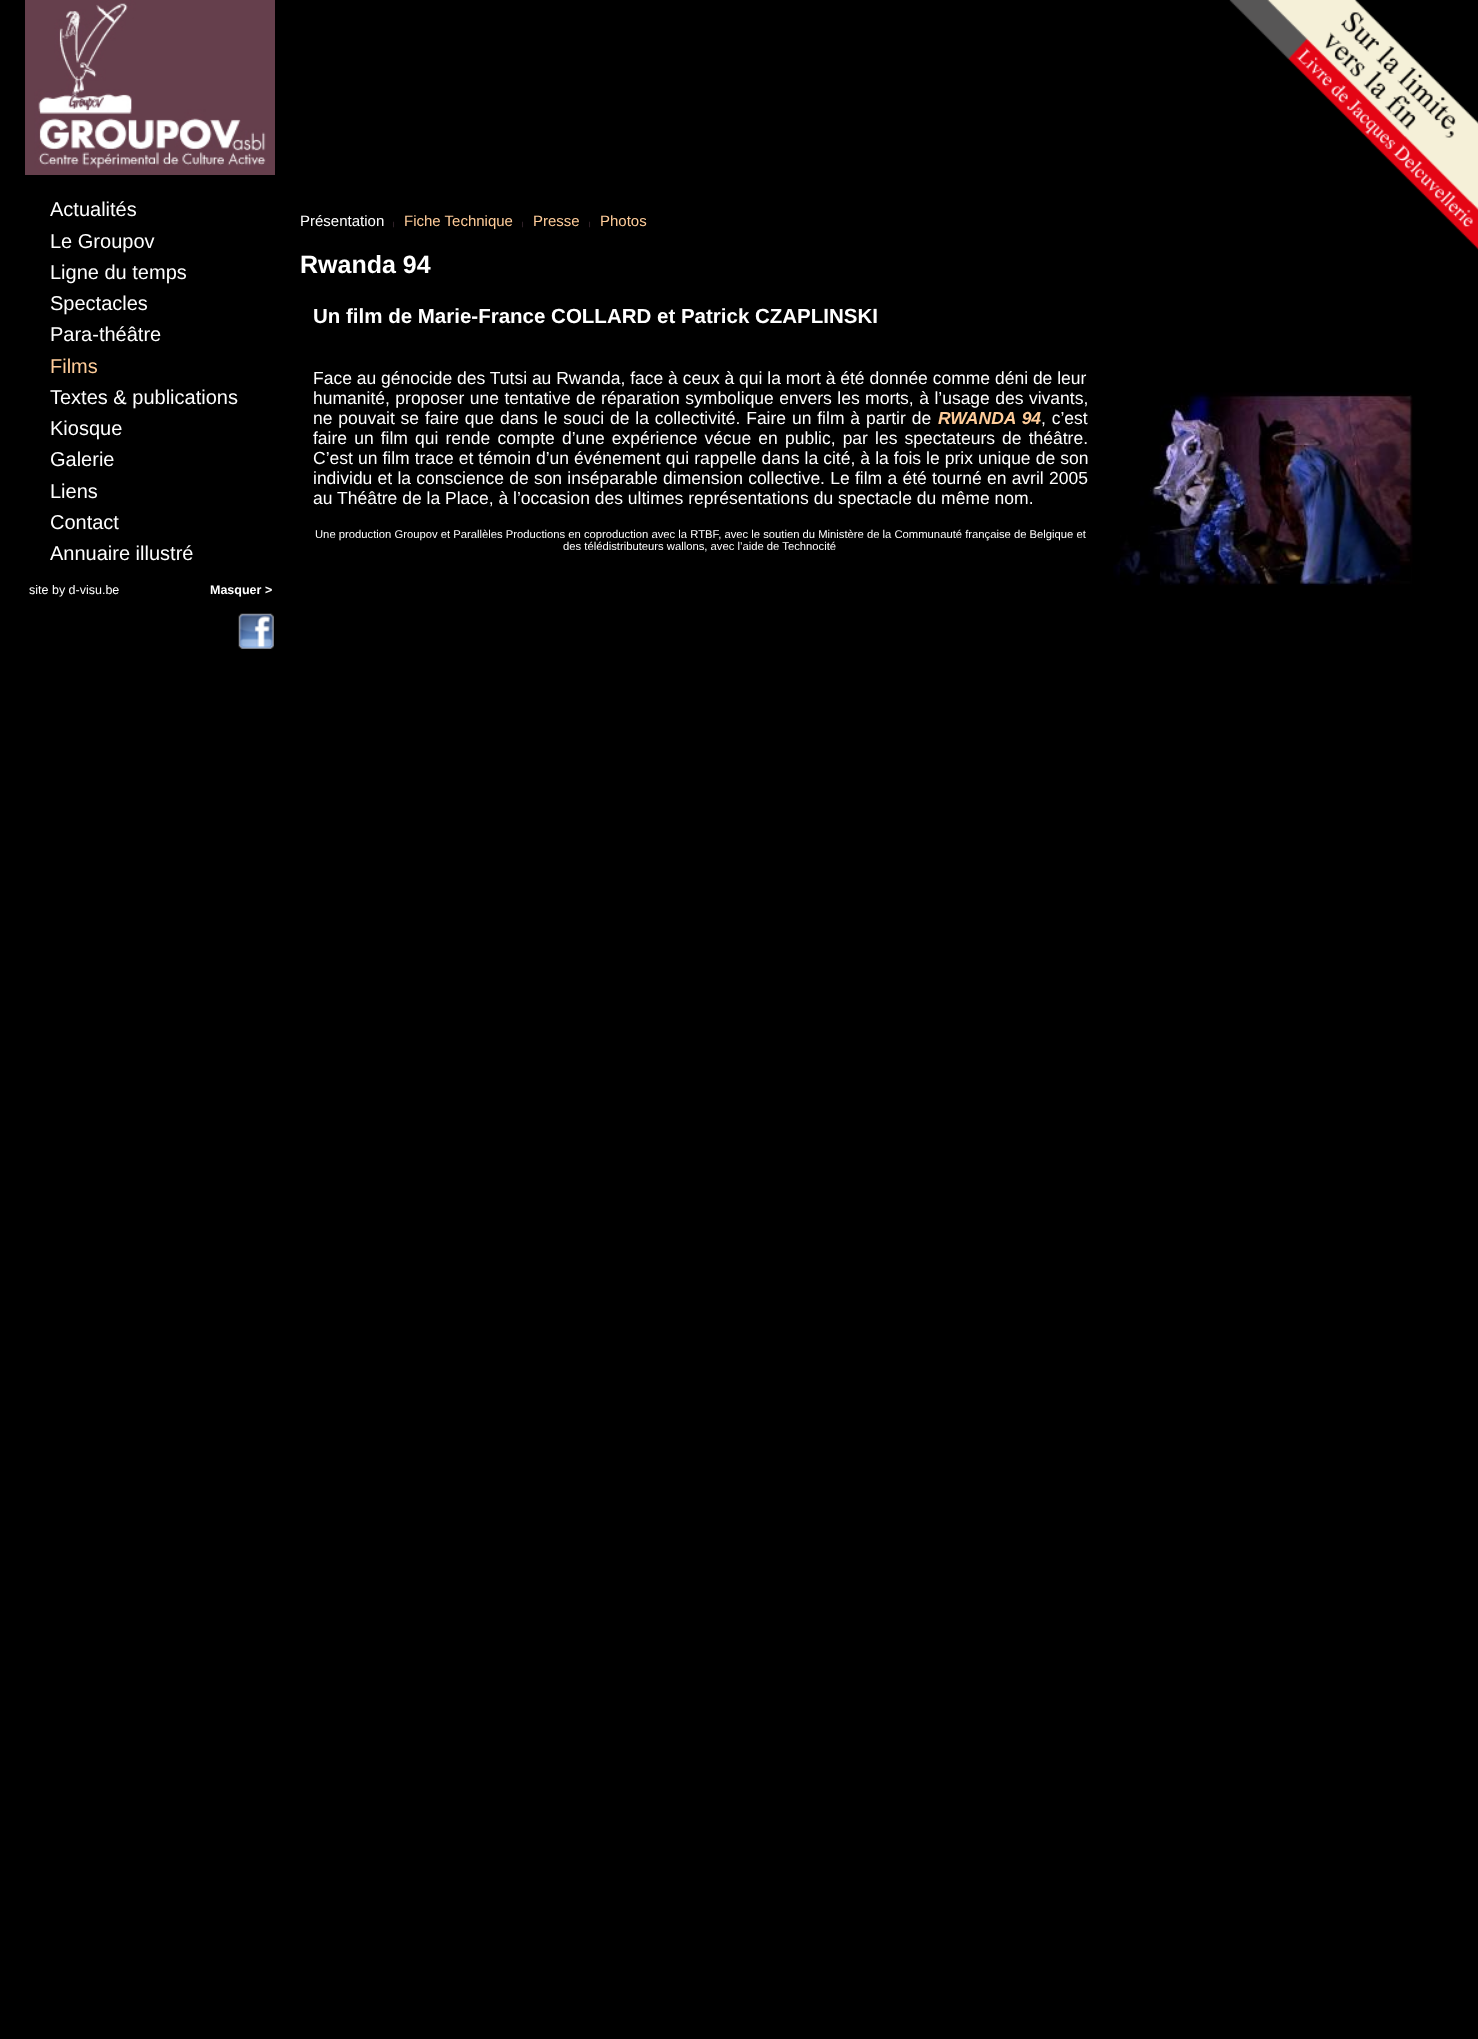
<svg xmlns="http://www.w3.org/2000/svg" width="1478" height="2039">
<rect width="100%" height="100%" fill="#000"/>
<image x="25" y="0" width="250" height="175" href="media/1.png"/>
<image x="1229" y="0" width="249" height="250" href="media/2.png"/>
<text x="50" y="216" style="font-family:Liberation Sans;font-size:20px;fill:#fff">Actualités</text>
<text x="50" y="248" style="font-family:Liberation Sans;font-size:20px;fill:#fff">Le Groupov</text>
<text x="50" y="279" style="font-family:Liberation Sans;font-size:20px;fill:#fff">Ligne du temps</text>
<text x="50" y="310" style="font-family:Liberation Sans;font-size:20px;fill:#fff">Spectacles</text>
<text x="50" y="341" style="font-family:Liberation Sans;font-size:20px;fill:#fff">Para-théâtre</text>
<text x="50" y="373" style="font-family:Liberation Sans;font-size:20px;fill:#fc9">Films</text>
<text x="50" y="404" style="font-family:Liberation Sans;font-size:20px;fill:#fff">Textes &amp; publications</text>
<text x="50" y="435" style="font-family:Liberation Sans;font-size:20px;fill:#fff">Kiosque</text>
<text x="50" y="466" style="font-family:Liberation Sans;font-size:20px;fill:#fff">Galerie</text>
<text x="50" y="498" style="font-family:Liberation Sans;font-size:20px;fill:#fff">Liens</text>
<text x="50" y="529" style="font-family:Liberation Sans;font-size:20px;fill:#fff">Contact</text>
<text x="50" y="560" style="font-family:Liberation Sans;font-size:20px;fill:#fff">Annuaire illustré</text>
<text x="29" y="594" style="font-family:Liberation Sans;font-size:12.5px;fill:#fff">site by d-visu.be</text>
<text x="210" y="594" style="font-family:Liberation Sans;font-size:12.5px;font-weight:bold;fill:#fff">Masquer &gt;</text>
<image x="238" y="613" width="36" height="36" href="media/3.png"/>
<text x="300" y="226" style="font-family:Liberation Sans;font-size:15px;fill:#fff">Présentation</text>
<text x="393" y="226" style="font-family:Liberation Sans;font-size:6px;fill:#5e414f">|</text>
<text x="404" y="226" style="font-family:Liberation Sans;font-size:15px;fill:#fc9">Fiche Technique</text>
<text x="522" y="226" style="font-family:Liberation Sans;font-size:6px;fill:#5e414f">|</text>
<text x="533" y="226" style="font-family:Liberation Sans;font-size:15px;fill:#fc9">Presse</text>
<text x="589" y="226" style="font-family:Liberation Sans;font-size:6px;fill:#5e414f">|</text>
<text x="600" y="226" style="font-family:Liberation Sans;font-size:15px;fill:#fc9">Photos</text>
<text x="300" y="273" style="font-family:Liberation Sans;font-size:25px;font-weight:bold;fill:#fff">Rwanda 94</text>
<text x="313" y="323" style="font-family:Liberation Sans;font-size:20.5px;font-weight:bold;fill:#fff">Un film de Marie-France COLLARD et Patrick CZAPLINSKI</text>
<text x="313" y="384" style="font-family:Liberation Sans;font-size:17.5px;fill:#fff">Face au génocide des Tutsi au Rwanda, face à ceux à qui la mort à été donnée comme déni de leur</text>
<text x="313" y="404" word-spacing="0.6" style="font-family:Liberation Sans;font-size:17.5px;fill:#fff">humanité, proposer une tentative de réparation symbolique envers les morts, à l’usage des vivants,</text>
<text x="313" y="424" word-spacing="1" style="font-family:Liberation Sans;font-size:17.5px;fill:#fff">ne pouvait se faire que dans le souci de la collectivité. Faire un film à partir de</text>
<text x="938" y="424" word-spacing="1" style="font-family:Liberation Sans;font-size:17.5px;font-weight:bold;font-style:italic;fill:#fc9">RWANDA 94</text>
<text x="1041" y="424" word-spacing="1" style="font-family:Liberation Sans;font-size:17.5px;fill:#fff">, c’est</text>
<text x="313" y="444" word-spacing="2.25" style="font-family:Liberation Sans;font-size:17.5px;fill:#fff">faire un film qui rende compte d’une expérience vécue en public, par les spectateurs de théâtre.</text>
<text x="313" y="464" word-spacing="0.2" style="font-family:Liberation Sans;font-size:17.5px;fill:#fff">C’est un film trace et témoin d’un événement qui rappelle dans la cité, à la fois le prix unique de son</text>
<text x="313" y="484" word-spacing="0.4" style="font-family:Liberation Sans;font-size:17.5px;fill:#fff">individu et la conscience de son inséparable dimension collective. Le film a été tourné en avril 2005</text>
<text x="313" y="504" style="font-family:Liberation Sans;font-size:17.5px;fill:#fff">au Théâtre de la Place, à l’occasion des ultimes représentations du spectacle du même nom.</text>
<image x="1113" y="392" width="300" height="194" href="media/4.png"/>
<text x="315" y="538" style="font-family:Liberation Sans;font-size:11.25px;fill:#fff">Une production Groupov et Parallèles Productions en coproduction avec la RTBF, avec le soutien du Ministère de la Communauté française de Belgique et</text>
<text x="563" y="550" style="font-family:Liberation Sans;font-size:11.25px;fill:#fff">des télédistributeurs wallons, avec l’aide de Technocité</text>
</svg>
